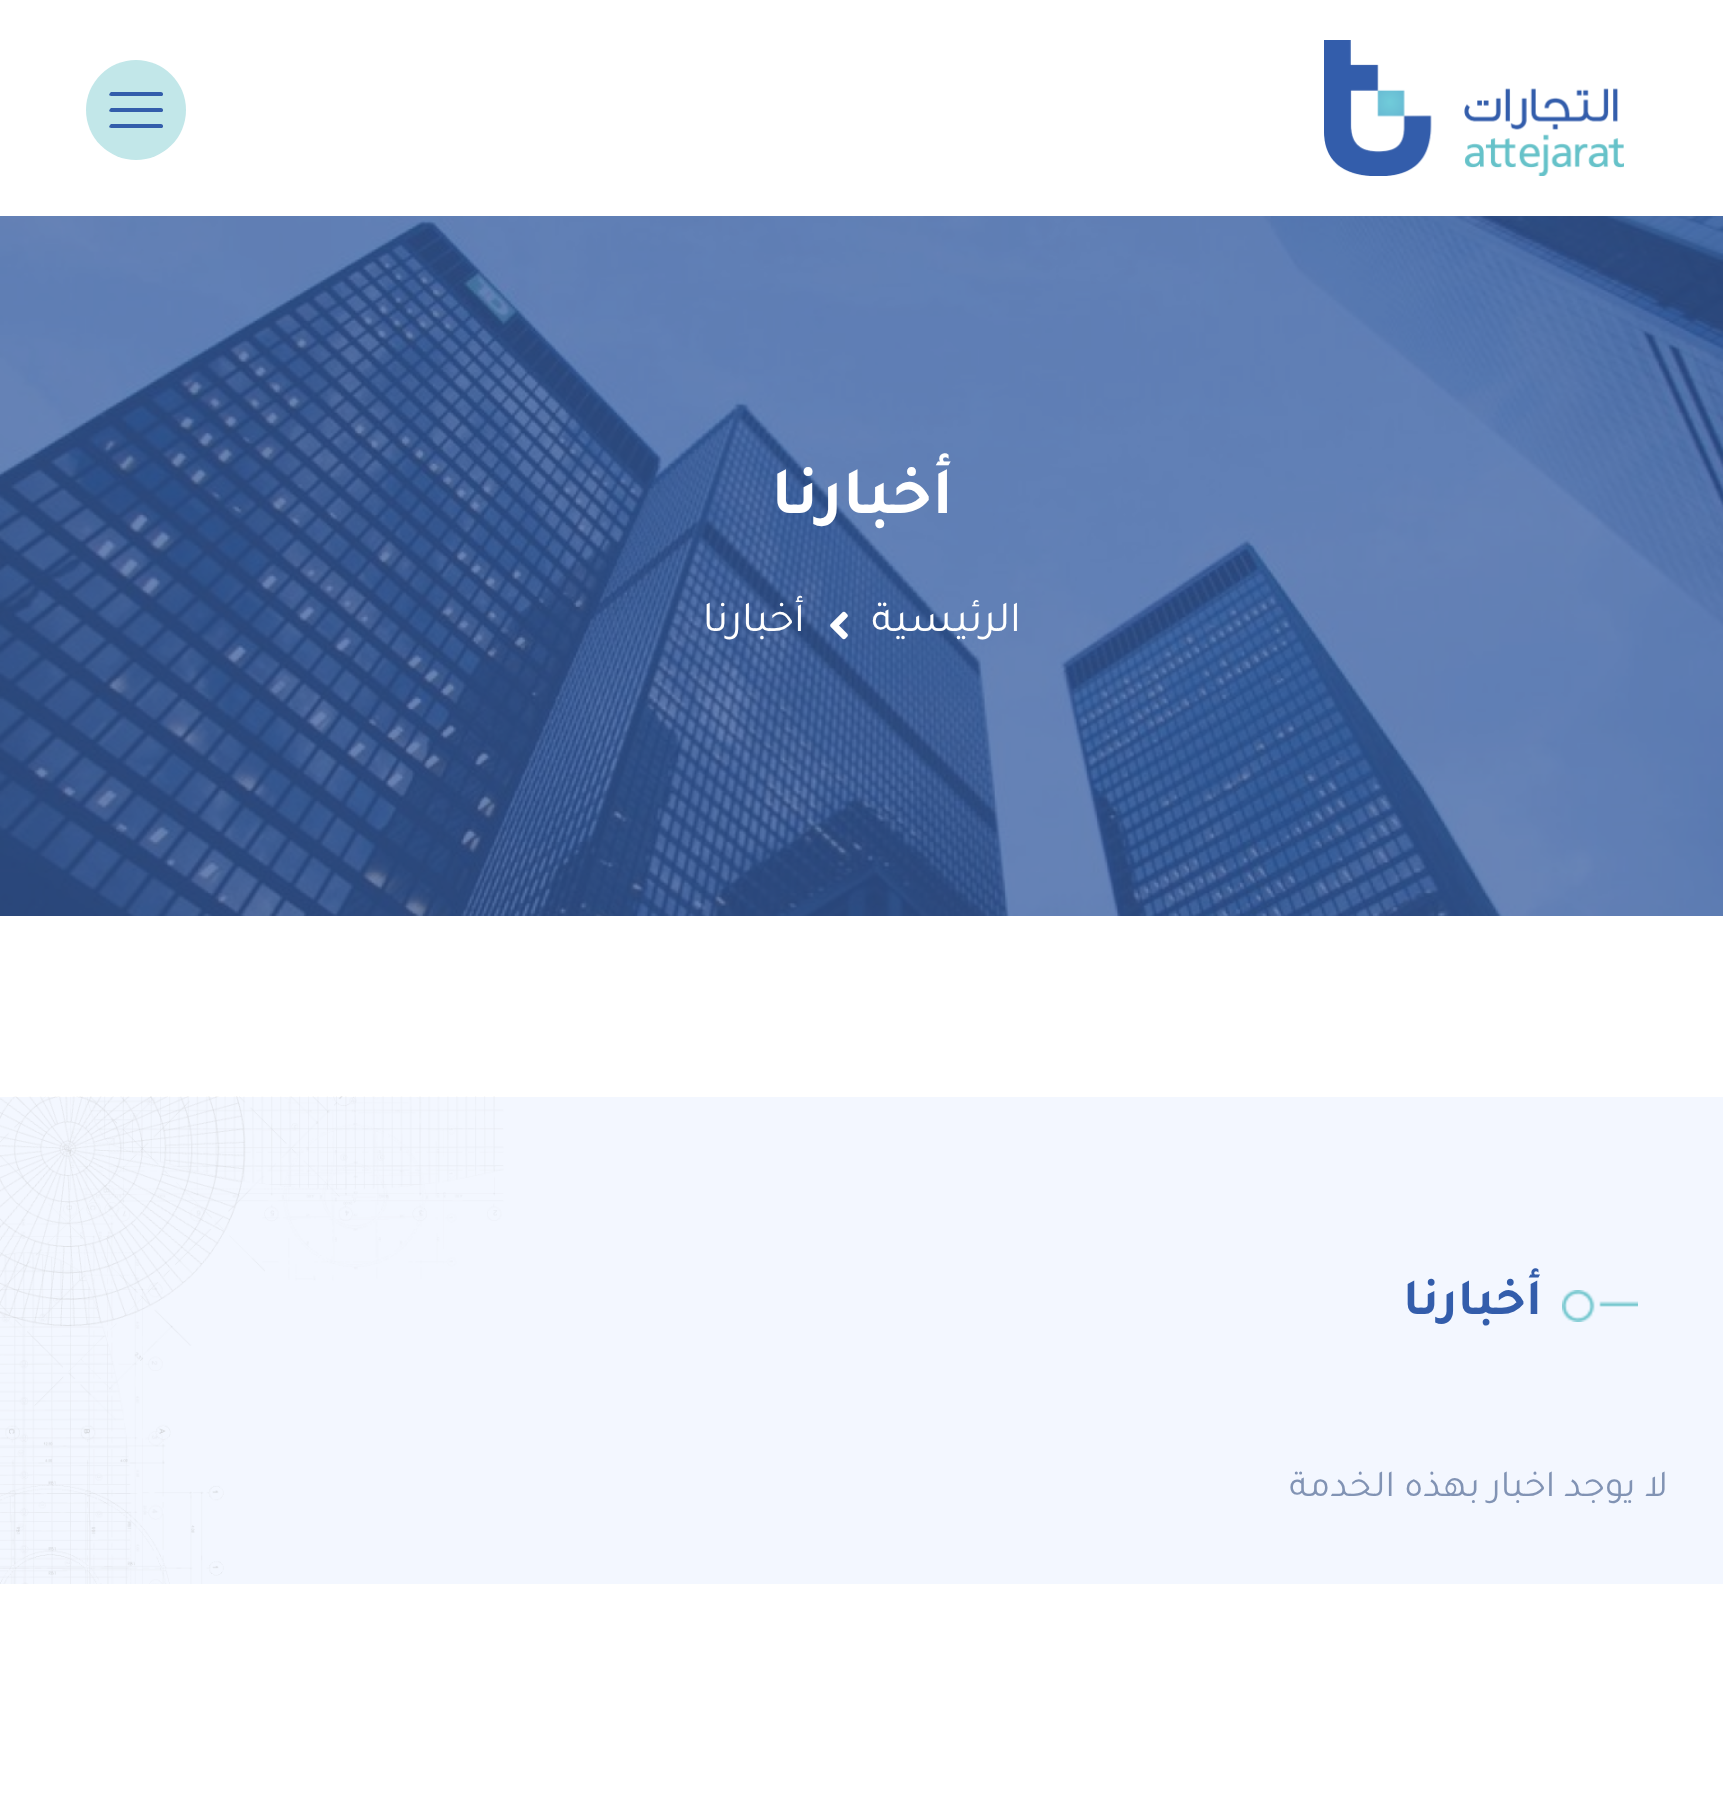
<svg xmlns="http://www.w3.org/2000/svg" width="1723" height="1810">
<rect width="100%" height="100%" fill="#fff"/>
<image x="1324" y="40" width="300" height="136" href="media/1.png"/>
<circle cx="136" cy="110" r="50" fill="#c2e7e9"/>
<path d="M161 92h-50l-1 1c-3 4 3 3 10 3h42c2-1 1-4-1-4zm0 16h-50l-1 1c-3 4 3 3 10 3h42c2-1 1-4-1-4zm0 16h-50l-1 1c-3 4 3 3 10 3h42c2-1 1-4-1-4z" fill="#335dab"/>
<image x="0" y="216" width="1723" height="700" href="media/2.png"/>
<text x="953" y="513" style="font-family:Tajawal;font-size:68px;font-weight:bold;direction:rtl;fill:#fff">أخبارنا</text>
<text x="1021" y="631" style="font-family:Tajawal;font-size:44px;direction:rtl;fill:#fff">الرئيسية</text>
<image x="830" y="611" width="18" height="29" href="media/3.png"/>
<text x="805" y="631" style="font-family:Tajawal;font-size:44px;direction:rtl;fill:#fff">أخبارنا</text>
<image x="0" y="1096" width="1723" height="488" href="media/4.png"/>
<image x="1562" y="1290" width="76" height="32" href="media/5.png"/>
<text x="1542" y="1314" style="font-family:Tajawal;font-size:52px;font-weight:bold;direction:rtl;fill:#335dab">أخبارنا</text>
<text x="1668" y="1496" style="font-family:Tajawal;font-size:38px;direction:rtl;fill:#8193b4">لا يوجد اخبار بهذه الخدمة</text>
</svg>
